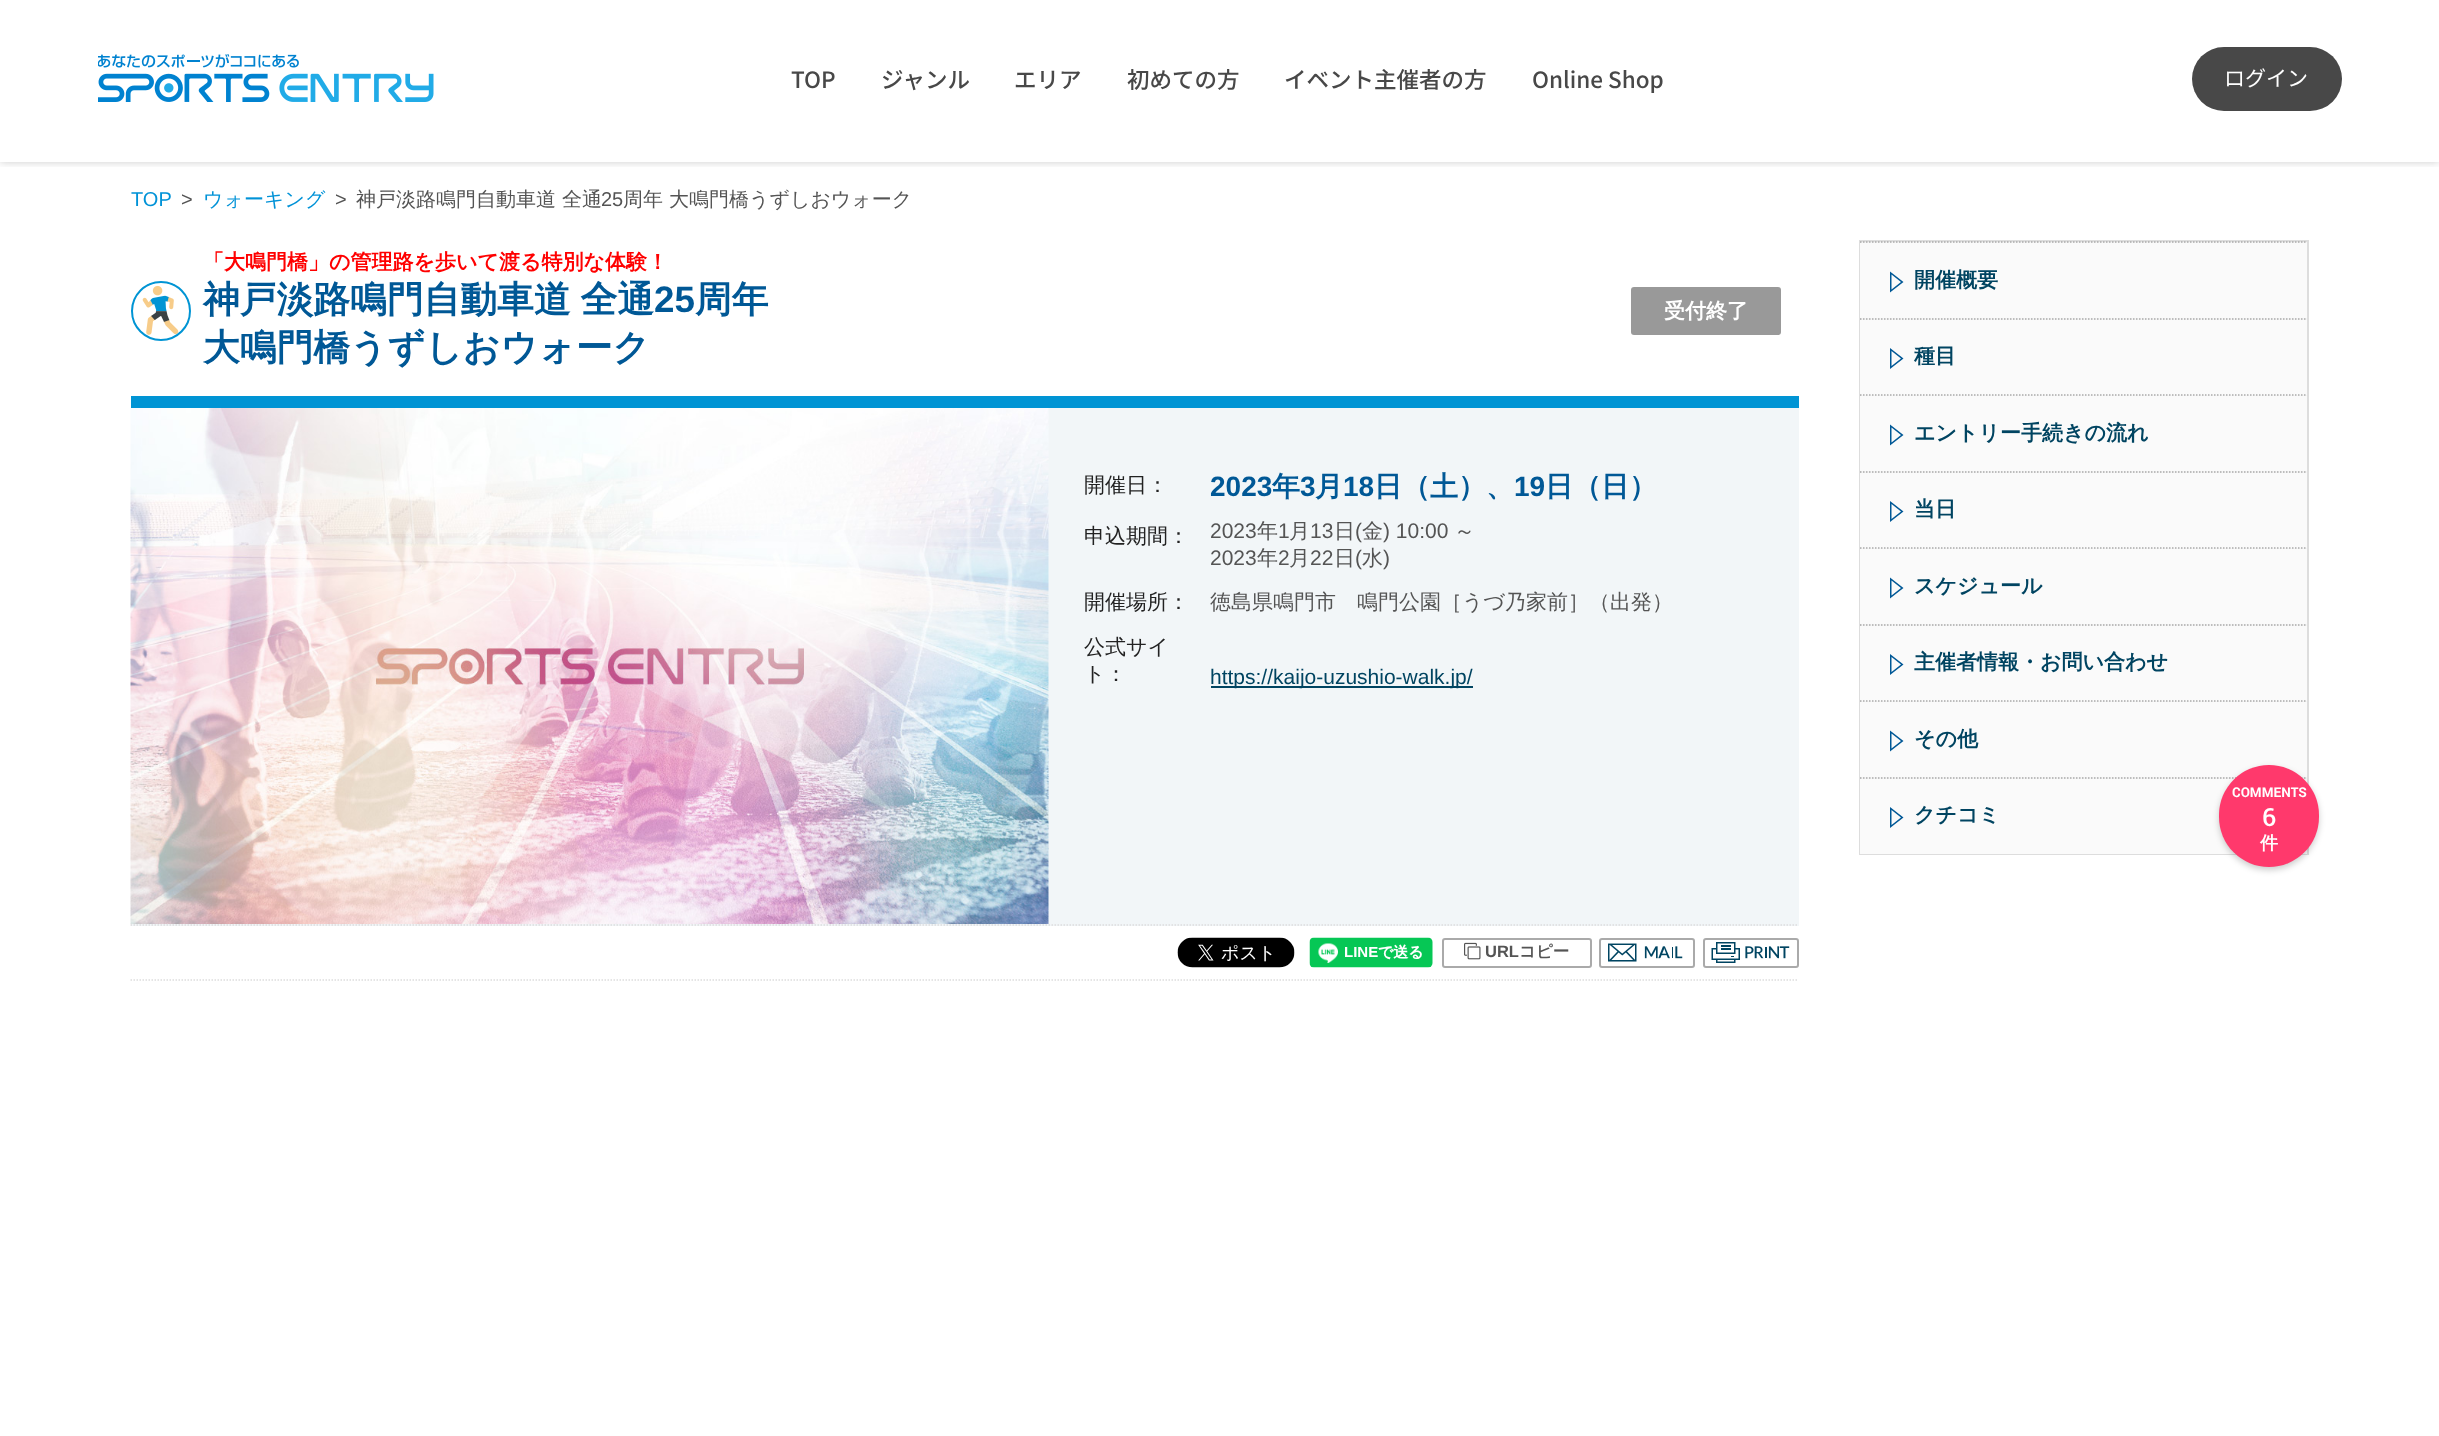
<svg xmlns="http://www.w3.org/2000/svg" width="2439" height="1436">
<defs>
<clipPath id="clip1"><rect x="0" y="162" width="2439" height="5"/></clipPath>
</defs>
<rect width="100%" height="100%" fill="#fff"/>
<g clip-path="url(#clip1)">
<rect width="2439" height="162" fill="#00000033" filter="blur(4px)"/>
</g>
<image x="98" y="54" width="336" height="48" href="media/1.png"/>
<text x="791" y="88" style="font-family:Noto Sans JP;font-size:22.5px;font-weight:500;fill:#484848">TOP</text>
<text x="881" y="88" style="font-family:Noto Sans JP;font-size:22.5px;font-weight:500;fill:#484848">ジャンル</text>
<text x="1014" y="88" style="font-family:Noto Sans JP;font-size:22.5px;font-weight:500;fill:#484848">エリア</text>
<text x="1127" y="88" style="font-family:Noto Sans JP;font-size:22.5px;font-weight:500;fill:#484848">初めての方</text>
<text x="1284" y="88" style="font-family:Noto Sans JP;font-size:22.5px;font-weight:500;fill:#484848">イベント主催者の方</text>
<text x="1532" y="88" style="font-family:Noto Sans JP;font-size:22.5px;font-weight:500;fill:#484848">Online Shop</text>
<rect x="2192" y="47" width="150" height="64" rx="32" fill="#484848"/>
<text x="2224" y="86" style="font-family:Noto Sans JP;font-size:21px;fill:#fff">ログイン</text>
<text x="131" y="206" style="font-family:Liberation Sans;font-size:20px;fill:#0092d7">TOP</text>
<text x="181" y="206" style="font-family:Liberation Sans;font-size:20px;fill:#545454">&gt;</text>
<text x="203" y="206" style="font-family:WenQuanYi Zen Hei;font-size:20px;font-weight:500;fill:#0092d7">ウォーキング</text>
<text x="335" y="206" style="font-family:Liberation Sans;font-size:20px;fill:#545454">&gt;</text>
<text x="356" y="206" style="font-family:WenQuanYi Zen Hei;font-size:20px;font-weight:500;fill:#545454">神戸淡路鳴門自動車道 全通</text>
<text x="601" y="206" style="font-family:Liberation Sans;font-size:20px;fill:#545454">25</text>
<text x="623" y="206" style="font-family:WenQuanYi Zen Hei;font-size:20px;font-weight:500;fill:#545454">周年 大鳴門橋うずしおウォーク</text>
<rect x="131" y="396" width="1668" height="12" fill="#0094d4"/>
<text x="203" y="269" style="font-family:WenQuanYi Zen Hei;font-size:21px;font-weight:bold;fill:#f00">「大鳴門橋」の管理路を歩いて渡る特別な体験！</text>
<image x="142" y="285" width="37" height="50" href="media/2.png"/>
<circle cx="161" cy="311" r="29" fill="none" stroke="#0094d4" stroke-width="2"/>
<text x="203" y="312" word-spacing="-1" style="font-family:WenQuanYi Zen Hei;font-size:36.75px;font-weight:bold;fill:#005896">神戸淡路鳴門自動車道 全通</text>
<text x="654" y="312" style="font-family:Liberation Sans;font-size:36.75px;font-weight:bold;fill:#005896">25</text>
<text x="695" y="312" style="font-family:WenQuanYi Zen Hei;font-size:36.75px;font-weight:bold;fill:#005896">周年</text>
<text x="203" y="360" style="font-family:WenQuanYi Zen Hei;font-size:36.75px;font-weight:bold;fill:#005896">大鳴門橋うずしおウォーク</text>
<rect x="1631" y="287" width="150" height="48" rx="3" fill="#999"/>
<text x="1664" y="318" style="font-family:WenQuanYi Zen Hei;font-size:21px;font-weight:bold;fill:#fff">受付終了</text>
<rect x="131" y="408" width="1668" height="518" fill="#f2f6f8"/>
<path d="M130.5 925h1668" fill="none" stroke="#ddd" stroke-width="1.5" stroke-dasharray="1.5 1.5"/>
<image x="130" y="408" width="919" height="516" href="media/3.png"/>
<text x="1084" y="492" style="font-family:WenQuanYi Zen Hei;font-size:21px;font-weight:500;fill:#222">開催日：</text>
<text x="1210" y="496" style="font-family:Liberation Sans;font-size:28px;font-weight:bold;fill:#005896">2023</text>
<text x="1272" y="496" style="font-family:WenQuanYi Zen Hei;font-size:28px;font-weight:bold;fill:#005896">年</text>
<text x="1300" y="496" style="font-family:Liberation Sans;font-size:28px;font-weight:bold;fill:#005896">3</text>
<text x="1315" y="496" style="font-family:WenQuanYi Zen Hei;font-size:28px;font-weight:bold;fill:#005896">月</text>
<text x="1343" y="496" style="font-family:Liberation Sans;font-size:28px;font-weight:bold;fill:#005896">18</text>
<text x="1374" y="496" style="font-family:WenQuanYi Zen Hei;font-size:28px;font-weight:bold;fill:#005896">日（土）、</text>
<text x="1514" y="496" style="font-family:Liberation Sans;font-size:28px;font-weight:bold;fill:#005896">19</text>
<text x="1545" y="496" style="font-family:WenQuanYi Zen Hei;font-size:28px;font-weight:bold;fill:#005896">日（日）</text>
<text x="1084" y="543" style="font-family:WenQuanYi Zen Hei;font-size:21px;font-weight:500;fill:#222">申込期間：</text>
<text x="1210" y="538" style="font-family:Liberation Sans;font-size:21px;fill:#545454">2023</text>
<text x="1257" y="538" style="font-family:WenQuanYi Zen Hei;font-size:21px;font-weight:500;fill:#545454">年</text>
<text x="1278" y="538" style="font-family:Liberation Sans;font-size:21px;fill:#545454">1</text>
<text x="1289" y="538" style="font-family:WenQuanYi Zen Hei;font-size:21px;font-weight:500;fill:#545454">月</text>
<text x="1310" y="538" style="font-family:Liberation Sans;font-size:21px;fill:#545454">13</text>
<text x="1334" y="538" style="font-family:WenQuanYi Zen Hei;font-size:21px;font-weight:500;fill:#545454">日</text>
<text x="1355" y="538" style="font-family:Liberation Sans;font-size:21px;fill:#545454">(</text>
<text x="1362" y="538" style="font-family:WenQuanYi Zen Hei;font-size:21px;font-weight:500;fill:#545454">金</text>
<text x="1383" y="538" style="font-family:Liberation Sans;font-size:21px;fill:#545454">) 10:00</text>
<text x="1454" y="538" style="font-family:WenQuanYi Zen Hei;font-size:21px;font-weight:500;fill:#545454">～</text>
<text x="1210" y="565" style="font-family:Liberation Sans;font-size:21px;fill:#545454">2023</text>
<text x="1257" y="565" style="font-family:WenQuanYi Zen Hei;font-size:21px;font-weight:500;fill:#545454">年</text>
<text x="1278" y="565" style="font-family:Liberation Sans;font-size:21px;fill:#545454">2</text>
<text x="1289" y="565" style="font-family:WenQuanYi Zen Hei;font-size:21px;font-weight:500;fill:#545454">月</text>
<text x="1310" y="565" style="font-family:Liberation Sans;font-size:21px;fill:#545454">22</text>
<text x="1334" y="565" style="font-family:WenQuanYi Zen Hei;font-size:21px;font-weight:500;fill:#545454">日</text>
<text x="1355" y="565" style="font-family:Liberation Sans;font-size:21px;fill:#545454">(</text>
<text x="1362" y="565" style="font-family:WenQuanYi Zen Hei;font-size:21px;font-weight:500;fill:#545454">水</text>
<text x="1383" y="565" style="font-family:Liberation Sans;font-size:21px;fill:#545454">)</text>
<text x="1084" y="609" style="font-family:WenQuanYi Zen Hei;font-size:21px;font-weight:500;fill:#222">開催場所：</text>
<text x="1210" y="609" style="font-family:WenQuanYi Zen Hei;font-size:21px;font-weight:500;fill:#545454">徳島県鳴門市　鳴門公園［うづ乃家前］（出発）</text>
<text x="1084" y="654" style="font-family:WenQuanYi Zen Hei;font-size:21px;font-weight:500;fill:#222">公式サイ</text>
<text x="1084" y="681" style="font-family:WenQuanYi Zen Hei;font-size:21px;font-weight:500;fill:#222">ト：</text>
<rect x="1211" y="686" width="262" height="2" fill="#004461"/>
<text x="1210" y="684" style="font-family:Liberation Sans;font-size:21px;fill:#004461">https://kaijo-uzushio-walk.jp/</text>
<path d="M130.5 980h1668" fill="none" stroke="#ddd" stroke-width="1.5" stroke-dasharray="1.5 1.5"/>
<image x="1177" y="937" width="118" height="31" href="media/4.png"/>
<image x="1309" y="937" width="124" height="31" href="media/5.png"/>
<rect x="1443" y="939" width="148" height="28" rx="2" fill="none" stroke="#aaa" stroke-width="2"/>
<image x="1464" y="942" width="17" height="18" href="media/6.png"/>
<text x="1485" y="957" style="font-family:Liberation Sans;font-size:16.5px;font-weight:bold;fill:#545454">URL</text>
<text x="1519" y="957" style="font-family:WenQuanYi Zen Hei;font-size:16.5px;font-weight:bold;fill:#545454">コピー</text>
<image x="1608" y="943" width="75" height="19" href="media/7.png"/>
<rect x="1600" y="939" width="94" height="28" rx="2" fill="none" stroke="#aaa" stroke-width="2"/>
<image x="1711" y="942" width="79" height="21" href="media/8.png"/>
<rect x="1704" y="939" width="94" height="28" rx="2" fill="none" stroke="#aaa" stroke-width="2"/>
<rect x="1861" y="242" width="446" height="537" fill="#f5f5f5"/>
<rect x="1860" y="241" width="448" height="613" fill="none" stroke="#ddd" stroke-width="2"/>
<path d="M1860 242h447" fill="none" stroke="#aaa" stroke-width="1.5" stroke-dasharray="1.5 1.5"/>
<rect x="1860" y="243" width="447" height="75" fill="#fafafa"/>
<path d="M1891.5 274.5l9.5 7.5l-9.5 7.5v-15m-1.5-3v21l13.5-10.5z" fill="#005896"/>
<text x="1914" y="287" style="font-family:WenQuanYi Zen Hei;font-size:21px;font-weight:bold;fill:#004461">開催概要</text>
<path d="M1860 319h447" fill="none" stroke="#aaa" stroke-width="1.5" stroke-dasharray="1.5 1.5"/>
<rect x="1860" y="320" width="447" height="75" fill="#fafafa"/>
<path d="M1891.5 351l9.5 7.5l-9.5 7.5v-15m-1.5-3v21l13.5-10.5z" fill="#005896"/>
<text x="1914" y="363" style="font-family:WenQuanYi Zen Hei;font-size:21px;font-weight:bold;fill:#004461">種目</text>
<path d="M1860 395h447" fill="none" stroke="#aaa" stroke-width="1.5" stroke-dasharray="1.5 1.5"/>
<rect x="1860" y="396" width="447" height="75" fill="#fafafa"/>
<path d="M1891.5 427.5l9.5 7.5l-9.5 7.5v-15m-1.5-3v21l13.5-10.5z" fill="#005896"/>
<text x="1914" y="440" style="font-family:WenQuanYi Zen Hei;font-size:21px;font-weight:bold;fill:#004461">エントリー手続きの流れ</text>
<path d="M1860 472h447" fill="none" stroke="#aaa" stroke-width="1.5" stroke-dasharray="1.5 1.5"/>
<rect x="1860" y="473" width="447" height="75" fill="#fafafa"/>
<path d="M1891.5 504l9.5 7.5l-9.5 7.5v-15m-1.5-3v21l13.5-10.5z" fill="#005896"/>
<text x="1914" y="516" style="font-family:WenQuanYi Zen Hei;font-size:21px;font-weight:bold;fill:#004461">当日</text>
<path d="M1860 548h447" fill="none" stroke="#aaa" stroke-width="1.5" stroke-dasharray="1.5 1.5"/>
<rect x="1860" y="549" width="447" height="75" fill="#fafafa"/>
<path d="M1891.5 580.5l9.5 7.5l-9.5 7.5v-15m-1.5-3v21l13.5-10.5z" fill="#005896"/>
<text x="1914" y="593" style="font-family:WenQuanYi Zen Hei;font-size:21px;font-weight:bold;fill:#004461">スケジュール</text>
<path d="M1860 625h447" fill="none" stroke="#aaa" stroke-width="1.5" stroke-dasharray="1.5 1.5"/>
<rect x="1860" y="626" width="447" height="75" fill="#fafafa"/>
<path d="M1891.5 657l9.5 7.5l-9.5 7.5v-15m-1.5-3v21l13.5-10.5z" fill="#005896"/>
<text x="1914" y="669" style="font-family:WenQuanYi Zen Hei;font-size:21px;font-weight:bold;fill:#004461">主催者情報・お問い合わせ</text>
<path d="M1860 701h447" fill="none" stroke="#aaa" stroke-width="1.5" stroke-dasharray="1.5 1.5"/>
<rect x="1860" y="702" width="447" height="75" fill="#fafafa"/>
<path d="M1891.5 733.5l9.5 7.5l-9.5 7.5v-15m-1.5-3v21l13.5-10.5z" fill="#005896"/>
<text x="1914" y="746" style="font-family:WenQuanYi Zen Hei;font-size:21px;font-weight:bold;fill:#004461">その他</text>
<path d="M1860 778h447" fill="none" stroke="#aaa" stroke-width="1.5" stroke-dasharray="1.5 1.5"/>
<rect x="1860" y="779" width="447" height="75" fill="#fafafa"/>
<path d="M1891.5 810l9.5 7.5l-9.5 7.5v-15m-1.5-3v21l13.5-10.5z" fill="#005896"/>
<text x="1914" y="822" style="font-family:WenQuanYi Zen Hei;font-size:21px;font-weight:bold;fill:#004461">クチコミ</text>
<rect x="2219" y="768" width="100" height="102" rx="50" fill="#00000033" filter="blur(3px)"/>
<rect x="2219" y="765" width="100" height="102" rx="50" fill="#ff396c"/>
<text x="2232" y="797" style="font-family:roboto;font-size:13.5px;font-weight:bold;fill:#fff">COMMENTS</text>
<text x="2262" y="826" style="font-family:Roboto;font-size:25px;font-weight:500;fill:#fff">6</text>
<text x="2260" y="849" style="font-family:WenQuanYi Zen Hei;font-size:18px;font-weight:bold;fill:#fff">件</text>
</svg>
